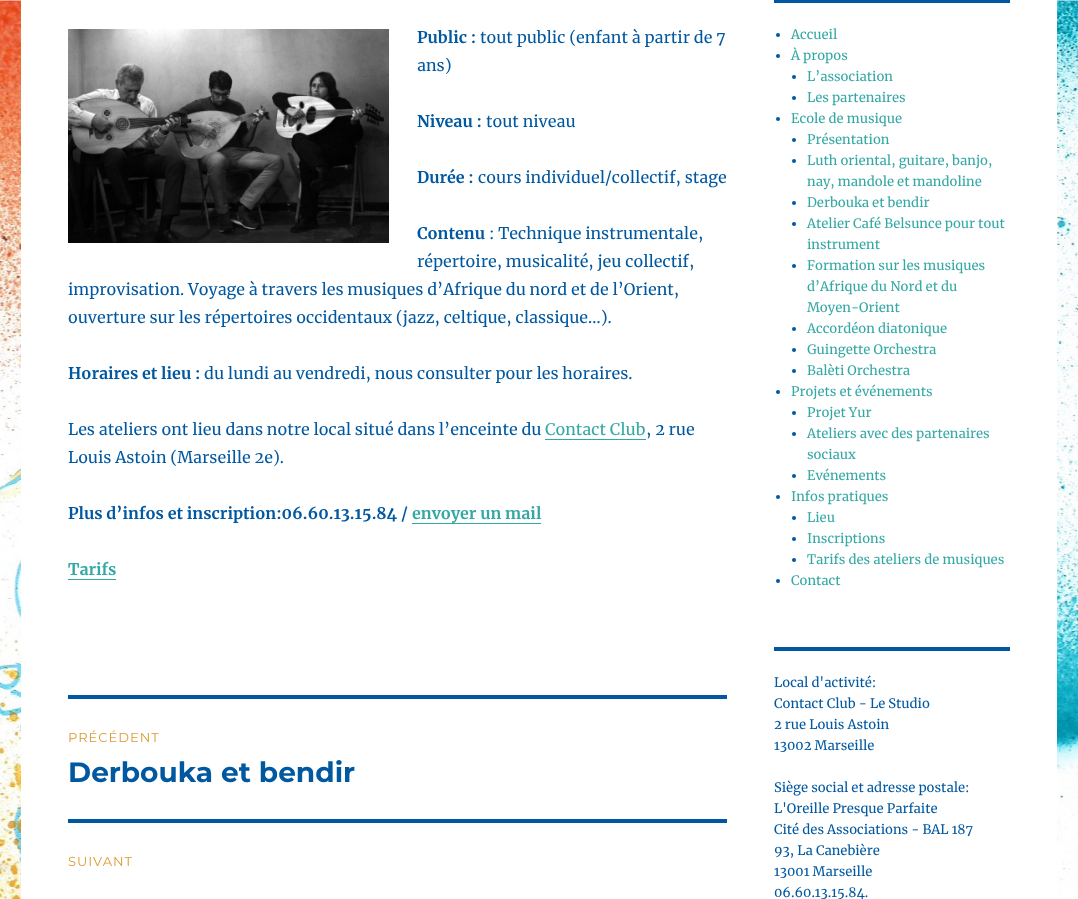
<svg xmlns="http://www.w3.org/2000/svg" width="1078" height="899">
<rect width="100%" height="100%" fill="#fff"/>
<image x="0" y="0" width="1078" height="899" href="media/1.png"/>
<rect x="21" width="1036" height="899" fill="#fff"/>
<image x="68" y="29" width="321" height="214" href="media/2.png"/>
<text x="417" y="43" style="font-family:Merriweather;font-size:16px;font-weight:bold;fill:#0058a0">Public :</text>
<text x="480" y="43" style="font-family:Merriweather;font-size:16px;fill:#0058a0">tout public (enfant à partir de 7</text>
<text x="417" y="71" style="font-family:Merriweather;font-size:16px;fill:#0058a0">ans)</text>
<text x="417" y="127" style="font-family:Merriweather;font-size:16px;font-weight:bold;fill:#0058a0">Niveau :</text>
<text x="486" y="127" style="font-family:Merriweather;font-size:16px;fill:#0058a0">tout niveau</text>
<text x="417" y="183" style="font-family:Merriweather;font-size:16px;font-weight:bold;fill:#0058a0">Durée :</text>
<text x="478" y="183" style="font-family:Merriweather;font-size:16px;fill:#0058a0">cours individuel/collectif, stage</text>
<text x="417" y="239" style="font-family:Merriweather;font-size:16px;font-weight:bold;fill:#0058a0">Contenu</text>
<text x="489" y="239" style="font-family:Merriweather;font-size:16px;fill:#0058a0">: Technique instrumentale,</text>
<text x="417" y="267" style="font-family:Merriweather;font-size:16px;fill:#0058a0">répertoire, musicalité, jeu collectif,</text>
<text x="68" y="295" style="font-family:Merriweather;font-size:16px;fill:#0058a0">improvisation. Voyage à travers les musiques d’Afrique du nord et de l’Orient,</text>
<text x="68" y="323" style="font-family:Merriweather;font-size:16px;fill:#0058a0">ouverture sur les répertoires occidentaux (jazz, celtique, classique…).</text>
<text x="68" y="379" style="font-family:Merriweather;font-size:16px;font-weight:bold;fill:#0058a0">Horaires et lieu :</text>
<text x="204" y="379" style="font-family:Merriweather;font-size:16px;fill:#0058a0">du lundi au vendredi, nous consulter pour les horaires.</text>
<text x="68" y="435" style="font-family:Merriweather;font-size:16px;fill:#0058a0">Les ateliers ont lieu dans notre local situé dans l’enceinte du</text>
<text x="545" y="435" style="font-family:Merriweather;font-size:16px;fill:#34a8a4">Contact Club</text>
<rect x="545" y="439" width="101" height="1" fill="#34a8a4"/>
<text x="646" y="435" style="font-family:Merriweather;font-size:16px;fill:#0058a0">, 2 rue</text>
<text x="68" y="463" style="font-family:Merriweather;font-size:16px;fill:#0058a0">Louis Astoin (Marseille 2e).</text>
<text x="68" y="519" style="font-family:Merriweather;font-size:16px;font-weight:bold;fill:#0058a0">Plus d’infos et inscription:06.60.13.15.84 /</text>
<text x="412" y="519" style="font-family:Merriweather;font-size:16px;font-weight:bold;fill:#34a8a4">envoyer un mail</text>
<rect x="412" y="523" width="129" height="1" fill="#34a8a4"/>
<text x="68" y="575" style="font-family:Merriweather;font-size:16px;font-weight:bold;fill:#34a8a4">Tarifs</text>
<rect x="68" y="579" width="48" height="1" fill="#34a8a4"/>
<rect x="68" y="695" width="659" height="4" fill="#0058a0"/>
<text x="68" y="742" style="font-family:Montserrat;font-size:13px;font-weight:100;letter-spacing:1px;fill:#d93">PRÉCÉDENT</text>
<text x="68" y="782" style="font-family:'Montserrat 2';font-size:28px;font-weight:100;fill:#0058a0">Derbouka et bendir</text>
<rect x="68" y="819" width="659" height="4" fill="#0058a0"/>
<text x="68" y="866" style="font-family:Montserrat;font-size:13px;font-weight:100;letter-spacing:1px;fill:#d93">SUIVANT</text>
<rect x="774" width="236" height="3" fill="#0058a0"/>
<circle cx="778" cy="35" r="2" fill="#0058a0"/>
<text x="791" y="39" style="font-family:Merriweather;font-size:13px;fill:#34a8a4">Accueil</text>
<circle cx="778" cy="56" r="2" fill="#0058a0"/>
<text x="791" y="60" style="font-family:Merriweather;font-size:13px;fill:#34a8a4">À propos</text>
<circle cx="794" cy="77" r="2" fill="#0058a0"/>
<text x="807" y="81" style="font-family:Merriweather;font-size:13px;fill:#34a8a4">L’association</text>
<circle cx="794" cy="98" r="2" fill="#0058a0"/>
<text x="807" y="102" style="font-family:Merriweather;font-size:13px;fill:#34a8a4">Les partenaires</text>
<circle cx="778" cy="119" r="2" fill="#0058a0"/>
<text x="791" y="123" style="font-family:Merriweather;font-size:13px;fill:#34a8a4">Ecole de musique</text>
<circle cx="794" cy="140" r="2" fill="#0058a0"/>
<text x="807" y="144" style="font-family:Merriweather;font-size:13px;fill:#34a8a4">Présentation</text>
<circle cx="794" cy="161" r="2" fill="#0058a0"/>
<text x="807" y="165" style="font-family:Merriweather;font-size:13px;fill:#34a8a4">Luth oriental, guitare, banjo,</text>
<text x="807" y="186" style="font-family:Merriweather;font-size:13px;fill:#34a8a4">nay, mandole et mandoline</text>
<circle cx="794" cy="203" r="2" fill="#0058a0"/>
<text x="807" y="207" style="font-family:Merriweather;font-size:13px;fill:#34a8a4">Derbouka et bendir</text>
<circle cx="794" cy="224" r="2" fill="#0058a0"/>
<text x="807" y="228" style="font-family:Merriweather;font-size:13px;fill:#34a8a4">Atelier Café Belsunce pour tout</text>
<text x="807" y="249" style="font-family:Merriweather;font-size:13px;fill:#34a8a4">instrument</text>
<circle cx="794" cy="266" r="2" fill="#0058a0"/>
<text x="807" y="270" style="font-family:Merriweather;font-size:13px;fill:#34a8a4">Formation sur les musiques</text>
<text x="807" y="291" style="font-family:Merriweather;font-size:13px;fill:#34a8a4">d’Afrique du Nord et du</text>
<text x="807" y="312" style="font-family:Merriweather;font-size:13px;fill:#34a8a4">Moyen-Orient</text>
<circle cx="794" cy="329" r="2" fill="#0058a0"/>
<text x="807" y="333" style="font-family:Merriweather;font-size:13px;fill:#34a8a4">Accordéon diatonique</text>
<circle cx="794" cy="350" r="2" fill="#0058a0"/>
<text x="807" y="354" style="font-family:Merriweather;font-size:13px;fill:#34a8a4">Guingette Orchestra</text>
<circle cx="794" cy="371" r="2" fill="#0058a0"/>
<text x="807" y="375" style="font-family:Merriweather;font-size:13px;fill:#34a8a4">Balèti Orchestra</text>
<circle cx="778" cy="392" r="2" fill="#0058a0"/>
<text x="791" y="396" style="font-family:Merriweather;font-size:13px;fill:#34a8a4">Projets et événements</text>
<circle cx="794" cy="413" r="2" fill="#0058a0"/>
<text x="807" y="417" style="font-family:Merriweather;font-size:13px;fill:#34a8a4">Projet Yur</text>
<circle cx="794" cy="434" r="2" fill="#0058a0"/>
<text x="807" y="438" style="font-family:Merriweather;font-size:13px;fill:#34a8a4">Ateliers avec des partenaires</text>
<text x="807" y="459" style="font-family:Merriweather;font-size:13px;fill:#34a8a4">sociaux</text>
<circle cx="794" cy="476" r="2" fill="#0058a0"/>
<text x="807" y="480" style="font-family:Merriweather;font-size:13px;fill:#34a8a4">Evénements</text>
<circle cx="778" cy="497" r="2" fill="#0058a0"/>
<text x="791" y="501" style="font-family:Merriweather;font-size:13px;fill:#34a8a4">Infos pratiques</text>
<circle cx="794" cy="518" r="2" fill="#0058a0"/>
<text x="807" y="522" style="font-family:Merriweather;font-size:13px;fill:#34a8a4">Lieu</text>
<circle cx="794" cy="539" r="2" fill="#0058a0"/>
<text x="807" y="543" style="font-family:Merriweather;font-size:13px;fill:#34a8a4">Inscriptions</text>
<circle cx="794" cy="560" r="2" fill="#0058a0"/>
<text x="807" y="564" style="font-family:Merriweather;font-size:13px;fill:#34a8a4">Tarifs des ateliers de musiques</text>
<circle cx="778" cy="581" r="2" fill="#0058a0"/>
<text x="791" y="585" style="font-family:Merriweather;font-size:13px;fill:#34a8a4">Contact</text>
<rect x="774" y="647" width="236" height="4" fill="#0058a0"/>
<text x="774" y="687" style="font-family:Merriweather;font-size:13px;fill:#0058a0">Local d'activité:</text>
<text x="774" y="708" style="font-family:Merriweather;font-size:13px;fill:#0058a0">Contact Club - Le Studio</text>
<text x="774" y="729" style="font-family:Merriweather;font-size:13px;fill:#0058a0">2 rue Louis Astoin</text>
<text x="774" y="750" style="font-family:Merriweather;font-size:13px;fill:#0058a0">13002 Marseille</text>
<text x="774" y="792" style="font-family:Merriweather;font-size:13px;fill:#0058a0">Siège social et adresse postale:</text>
<text x="774" y="813" style="font-family:Merriweather;font-size:13px;fill:#0058a0">L'Oreille Presque Parfaite</text>
<text x="774" y="834" style="font-family:Merriweather;font-size:13px;fill:#0058a0">Cité des Associations - BAL 187</text>
<text x="774" y="855" style="font-family:Merriweather;font-size:13px;fill:#0058a0">93, La Canebière</text>
<text x="774" y="876" style="font-family:Merriweather;font-size:13px;fill:#0058a0">13001 Marseille</text>
<text x="774" y="897" style="font-family:Merriweather;font-size:13px;fill:#0058a0">06.60.13.15.84.</text>
</svg>
